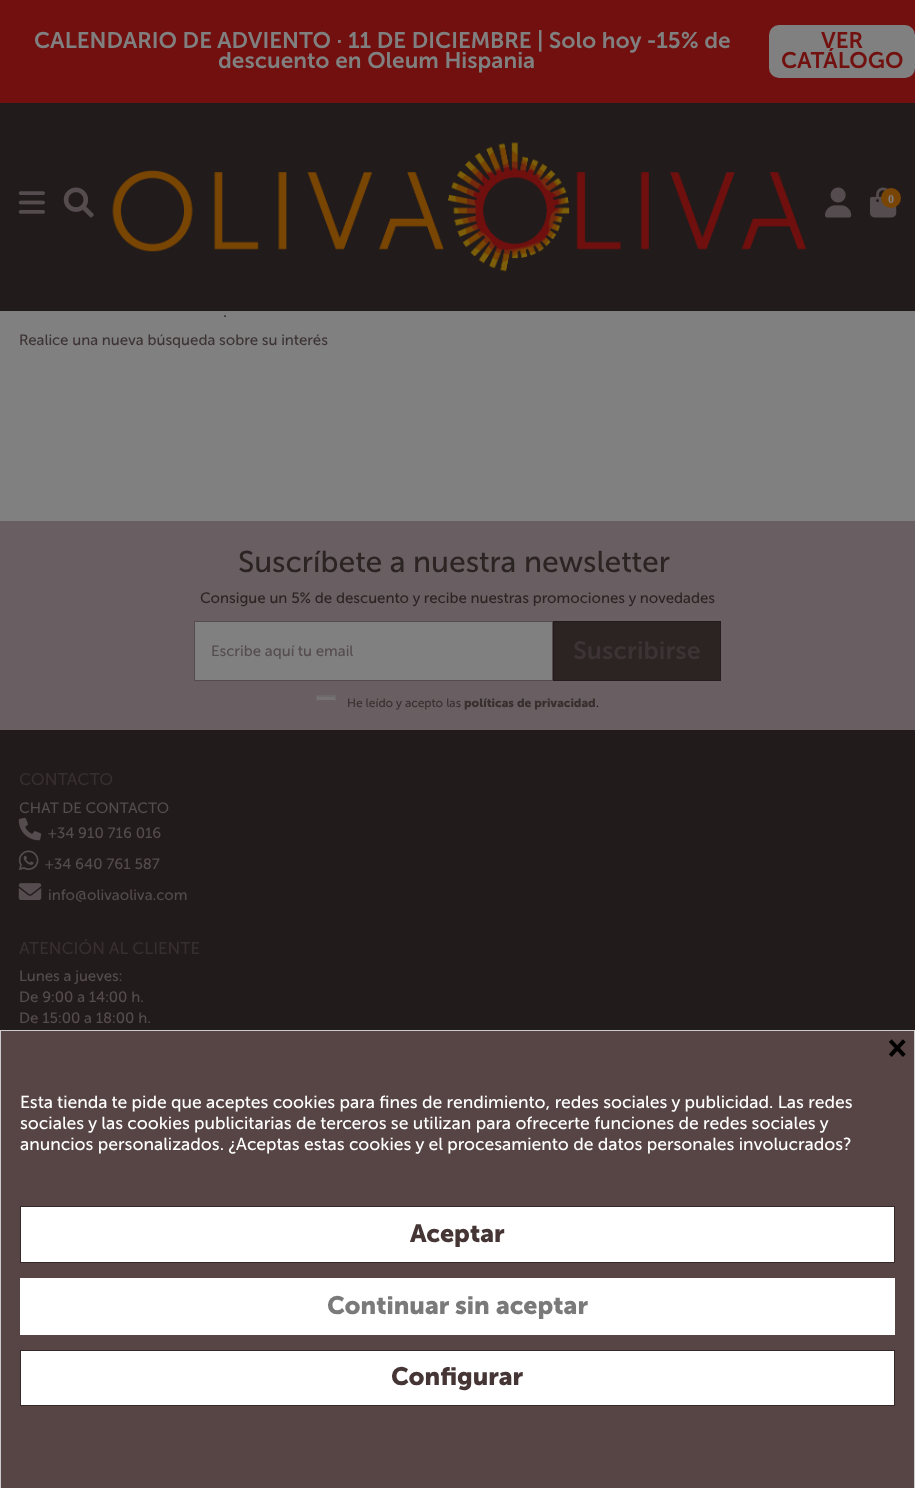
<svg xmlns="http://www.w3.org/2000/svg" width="915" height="1488">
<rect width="100%" height="100%" fill="#808080"/>
<rect width="915" height="103" fill="#71100e"/>
<text x="34" y="48" style="font-family:'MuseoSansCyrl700';font-size:22.5px;fill:#808080">CALENDARIO DE ADVIENTO · 11 DE DICIEMBRE | Solo hoy -15% de</text>
<rect x="769" y="25" width="146" height="53" rx="10" fill="#808080"/>
<text x="821" y="48" style="font-family:'MuseoSansCyrl700';font-size:22.5px;fill:#71100e">VER</text>
<text x="781" y="68" style="font-family:'MuseoSansCyrl700';font-size:22.5px;fill:#71100e">CATÁLOGO</text>
<text x="218" y="68" style="font-family:'MuseoSansCyrl700';font-size:22.5px;fill:#808080">descuento en Oleum Hispania</text>
<rect y="103" width="915" height="208" fill="#221b1b"/>
<image x="18" y="191" width="27" height="23" href="media/1.png"/>
<image x="63" y="187" width="31" height="31" href="media/2.png"/>
<image x="112" y="142" width="695" height="130" href="media/3.png"/>
<image x="825" y="187" width="27" height="31" href="media/4.png"/>
<image x="870" y="187" width="27" height="31" href="media/5.png"/>
<circle cx="891" cy="198" r="10" fill="#784505"/>
<text x="888" y="203" style="font-family:Liberation Serif;font-size:12px;font-weight:bold;fill:#808080">0</text>
<text x="223" y="317" style="font-family:'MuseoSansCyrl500';font-size:16.9px;fill:#3d3335">.</text>
<text x="19" y="345" style="font-family:'MuseoSansCyrl500';font-size:15px;fill:#3d3335">Realice una nueva búsqueda sobre su interés</text>
<rect y="730" width="915" height="300" fill="#221b1b"/>
<rect y="521" width="915" height="209" fill="#695f62"/>
<text x="238" y="572" style="font-family:'MuseoSansCyrl500';font-size:30px;fill:#2c2323">Suscríbete a nuestra newsletter</text>
<text x="200" y="603" style="font-family:'MuseoSansCyrl500';font-size:15px;fill:#2c2323">Consigue un 5% de descuento y recibe nuestras promociones y novedades</text>
<rect x="194.5" y="621.5" width="358" height="59" fill="#808080" stroke="#554c4f"/>
<text x="211" y="656" style="font-family:'MuseoSansCyrl500';font-size:15px;fill:#554c4f">Escribe aquí tu email</text>
<rect x="553.5" y="621.5" width="167" height="59" fill="#2c2323" stroke="#251d1d"/>
<text x="573" y="659" style="font-family:'MuseoSansCyrl700';font-size:25px;fill:#3d3335">Suscribirse</text>
<rect x="317" y="696" width="18" height="5" fill="#777374"/>
<rect x="318" y="696" width="17" height="1" fill="#6e6a6c"/>
<rect x="316.5" y="695.5" width="19" height="19" fill="none" stroke="#6d696a"/>
<text x="347" y="707" style="font-family:'MuseoSansCyrl500';font-size:12px;fill:#382f2f">He leído y acepto las</text>
<text x="464" y="707" style="font-family:'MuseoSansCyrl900';font-size:12px;fill:#382f2f">políticas de privacidad</text>
<rect x="316.5" y="700.5" width="19" height="19" rx="2" fill="#695f62" stroke="#695f62"/>
<text x="596" y="707" style="font-family:'MuseoSansCyrl500';font-size:12px;fill:#151314">.</text>
<text x="19" y="785" style="font-family:'MuseoSansCyrl500';font-size:16.9px;fill:#382f2f">CONTACTO</text>
<text x="19" y="813" style="font-family:'MuseoSansCyrl500';font-size:15px;fill:#554c4f">CHAT DE CONTACTO</text>
<image x="18" y="817" width="24" height="24" href="media/6.png"/>
<text x="48" y="838" style="font-family:'MuseoSansCyrl500';font-size:15px;fill:#554c4f">+34 910 716 016</text>
<image x="18" y="850" width="21" height="20" href="media/7.png"/>
<text x="45" y="869" style="font-family:'MuseoSansCyrl500';font-size:15px;fill:#554c4f">+34 640 761 587</text>
<image x="18" y="883" width="24" height="17" href="media/8.png"/>
<text x="48" y="900" style="font-family:'MuseoSansCyrl500';font-size:15px;fill:#554c4f">info@olivaoliva.com</text>
<text x="19" y="954" style="font-family:'MuseoSansCyrl500';font-size:16.9px;fill:#382f2f">ATENCIÓN AL CLIENTE</text>
<text x="19" y="981" style="font-family:'MuseoSansCyrl500';font-size:15px;fill:#554c4f">Lunes a jueves:</text>
<text x="19" y="1002" style="font-family:'MuseoSansCyrl500';font-size:15px;fill:#554c4f">De 9:00 a 14:00 h.</text>
<text x="19" y="1023" style="font-family:'MuseoSansCyrl500';font-size:15px;fill:#554c4f">De 15:00 a 18:00 h.</text>
<rect x="0.5" y="1030.5" width="914" height="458" fill="#574545" stroke="#ccc"/>
<text x="888" y="1057" style="font-family:'MuseoSansCyrl900';font-size:31px;fill:#000">×</text>
<text x="20" y="1108" style="font-family:'MuseoSansCyrl500';font-size:17.5px;fill:#fff">Esta tienda te pide que aceptes cookies para fines de rendimiento, redes sociales y publicidad. Las redes</text>
<text x="20" y="1129" style="font-family:'MuseoSansCyrl500';font-size:17.5px;fill:#fff">sociales y las cookies publicitarias de terceros se utilizan para ofrecerte funciones de redes sociales y</text>
<text x="20" y="1150" style="font-family:'MuseoSansCyrl500';font-size:17.5px;fill:#fff">anuncios personalizados. ¿Aceptas estas cookies y el procesamiento de datos personales involucrados?</text>
<rect x="20.5" y="1206.5" width="874" height="56" fill="#fff" stroke="#342928"/>
<text x="410" y="1242" style="font-family:'MuseoSansCyrl900';font-size:25px;fill:#453535">Aceptar</text>
<rect x="20" y="1278" width="875" height="57" fill="#fff"/>
<text x="327" y="1314" style="font-family:'MuseoSansCyrl900';font-size:25px;fill:#7a7a7a">Continuar sin aceptar</text>
<rect x="20.5" y="1350.5" width="874" height="55" fill="#fff" stroke="#342928"/>
<text x="391" y="1385" style="font-family:'MuseoSansCyrl900';font-size:25px;fill:#453535">Configurar</text>
</svg>
